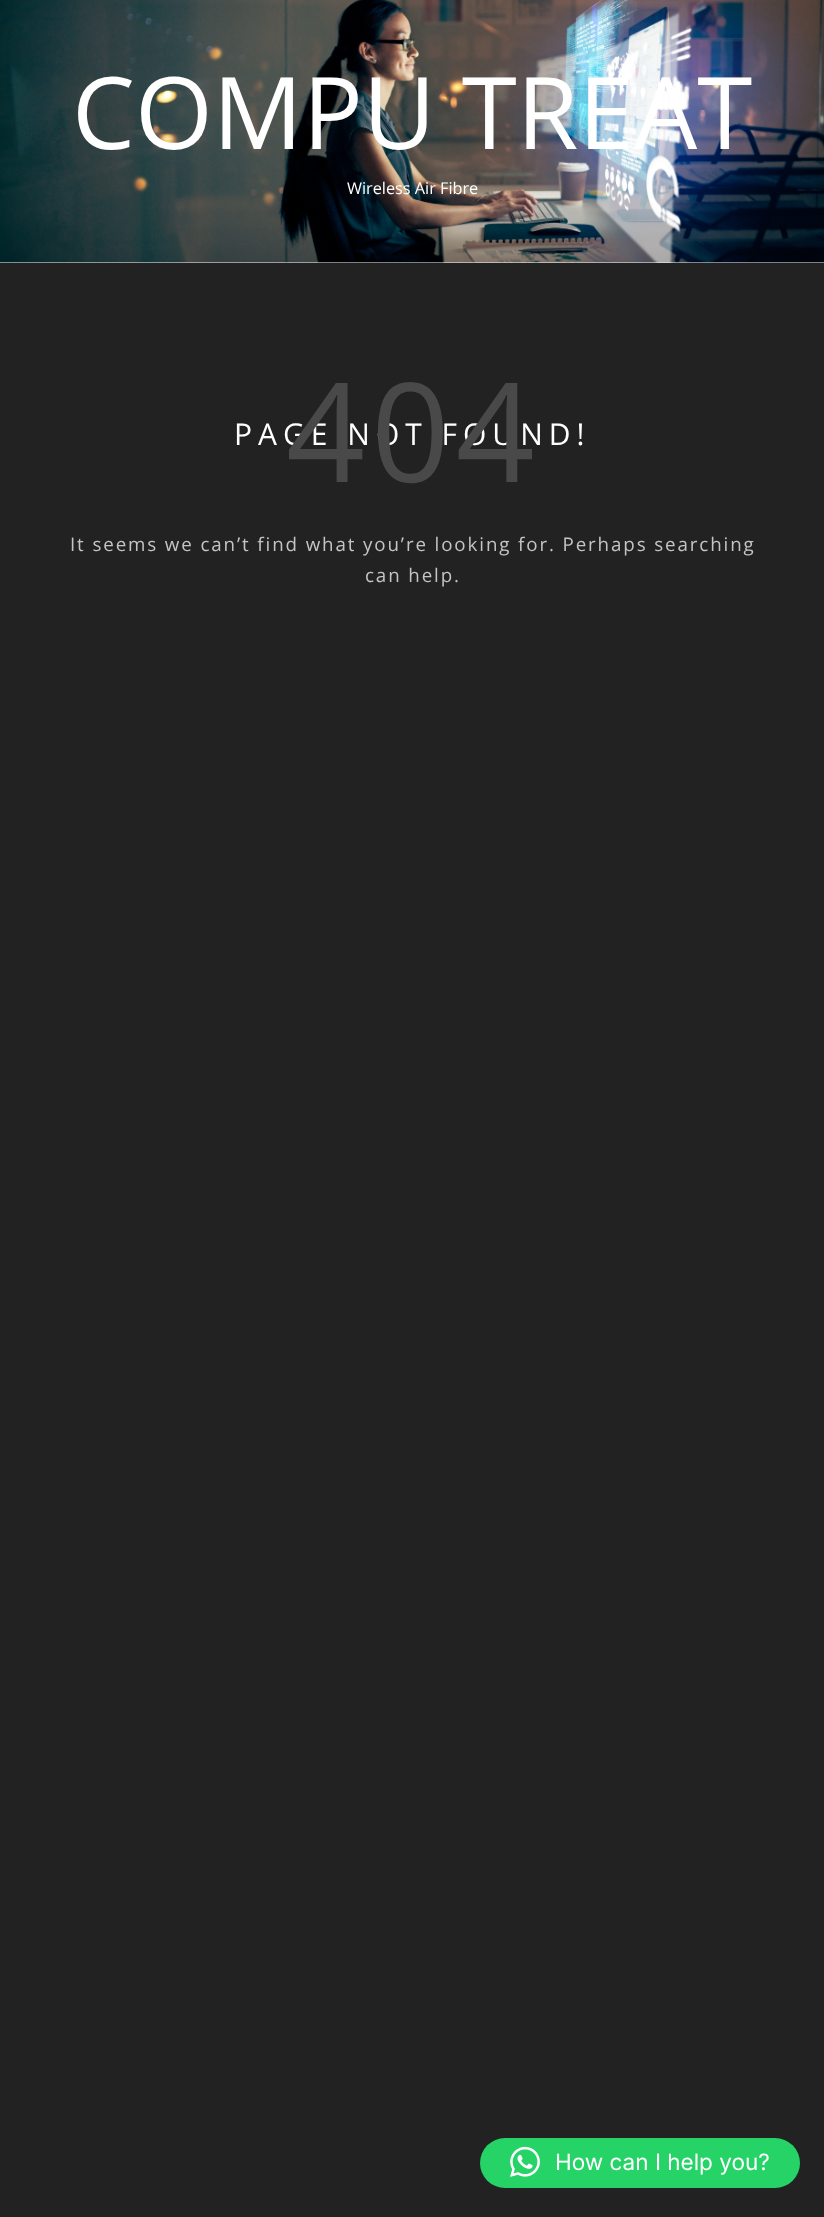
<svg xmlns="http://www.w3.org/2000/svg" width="824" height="2217">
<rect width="100%" height="100%" fill="#222"/>
<rect y="262" width="824" height="1" fill="#fff"/>
<image x="0" y="0" width="824" height="263" href="media/1.png"/>
<text x="72" y="149" style="font-family:Open Sans;font-size:100px;fill:#fff">COMPU TREAT</text>
<text x="347" y="194" style="font-family:Open Sans;font-size:16.25px;fill:#fff">Wireless Air Fibre</text>
<text x="234" y="445" style="font-family:Open Sans;font-size:30px;letter-spacing:6px;fill:#fff">PAGE NOT FOUND!</text>
<text x="286" y="482" style="font-family:Open Sans;font-size:138px;letter-spacing:6px;fill:#494949">404</text>
<text x="70" y="551" style="font-family:Open Sans;font-size:18.75px;letter-spacing:1.88px;fill:#c4c4c4">It seems we can’t find what you’re looking for. Perhaps searching</text>
<text x="365" y="582" style="font-family:Open Sans;font-size:18.75px;letter-spacing:1.88px;fill:#c4c4c4">can help.</text>
<rect x="480" y="2138" width="320" height="50" rx="25" fill="#25d366"/>
<image x="510" y="2146" width="30" height="31" href="media/2.png"/>
<text x="555" y="2170" style="font-family:Inter;font-size:22.5px;fill:#fff">How can I help you?</text>
</svg>
